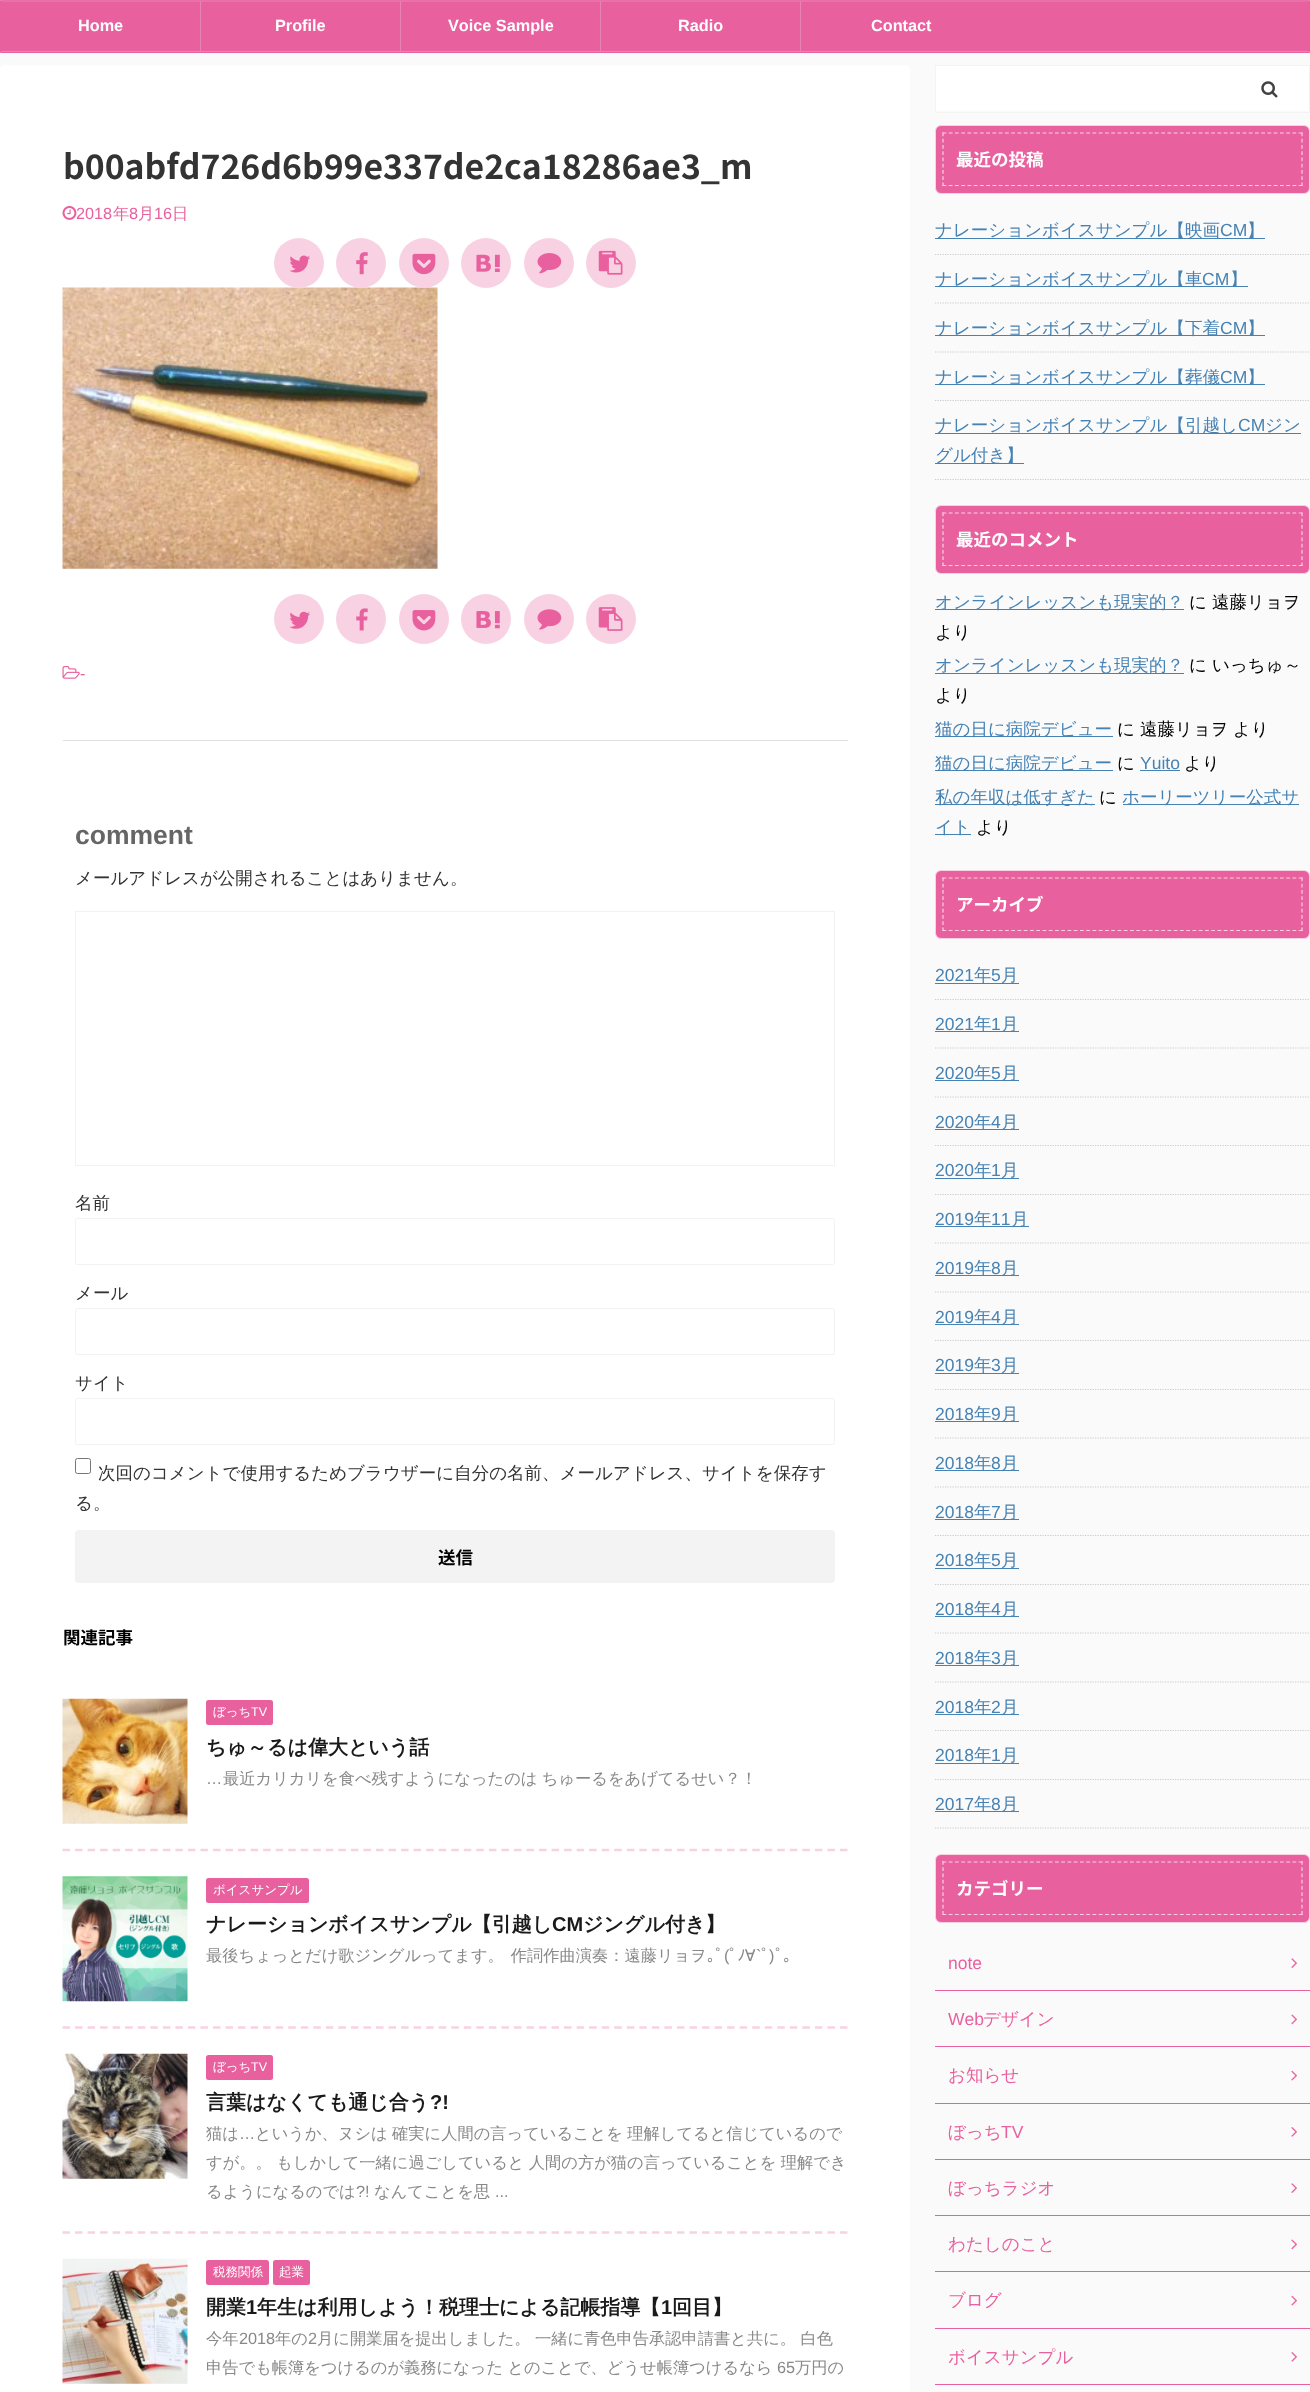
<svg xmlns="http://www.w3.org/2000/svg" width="1310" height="2392">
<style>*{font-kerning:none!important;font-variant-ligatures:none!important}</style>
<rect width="100%" height="100%" fill="#fafafa"/>
<rect width="1310" height="53" rx="1" fill="#e9609e"/>
<path d="M1 1h1308" fill="none" stroke="#e884b1" stroke-width="1.2"/>
<path d="M1309 1v50.5" fill="none" stroke="#e9609e" stroke-width="1.2"/>
<rect x="1" y="51" width="1308" height="1" fill="#e884b1"/>
<path d="M1 51.5v-50.5" fill="none" stroke="#e9609e" stroke-width="1.2"/>
<rect x="200" y="1" width="1" height="50" fill="#e884b1"/>
<text x="78" y="31" style="font-family:Liberation Sans;font-size:16.25px;font-weight:bold;fill:#fff">Home</text>
<rect x="400" y="1" width="1" height="50" fill="#e884b1"/>
<text x="275" y="31" style="font-family:Liberation Sans;font-size:16.25px;font-weight:bold;fill:#fff">Profile</text>
<rect x="600" y="1" width="1" height="50" fill="#e884b1"/>
<text x="448" y="31" style="font-family:Liberation Sans;font-size:16.25px;font-weight:bold;fill:#fff">Voice Sample</text>
<rect x="800" y="1" width="1" height="50" fill="#e884b1"/>
<text x="678" y="31" style="font-family:Liberation Sans;font-size:16.25px;font-weight:bold;fill:#fff">Radio</text>
<text x="871" y="31" style="font-family:Liberation Sans;font-size:16.25px;font-weight:bold;fill:#fff">Contact</text>
<rect y="65" width="910" height="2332" rx="5" fill="#fff"/>
<text x="63" y="179" style="font-family:Noto Sans JP;font-size:33.75px;font-weight:bold;fill:#333">b00abfd726d6b99e337de2ca18286ae3_m</text>
<image x="62" y="206" width="15" height="14" href="media/1.png"/>
<text x="76" y="219" style="font-family:Liberation Sans;font-size:16.25px;fill:#e9609e">2018</text>
<text x="113" y="219" style="font-family:WenQuanYi Zen Hei;font-size:16.25px;font-weight:500;fill:#e9609e">年</text>
<text x="129" y="219" style="font-family:Liberation Sans;font-size:16.25px;fill:#e9609e">8</text>
<text x="138" y="219" style="font-family:WenQuanYi Zen Hei;font-size:16.25px;font-weight:500;fill:#e9609e">月</text>
<text x="154" y="219" style="font-family:Liberation Sans;font-size:16.25px;fill:#e9609e">16</text>
<text x="172" y="219" style="font-family:WenQuanYi Zen Hei;font-size:16.25px;font-weight:500;fill:#e9609e">日</text>
<image x="62" y="287" width="376" height="282" href="media/8.png"/>
<circle cx="299" cy="263" r="25" fill="#f8d2e3"/>
<image x="289" y="255" width="21" height="18" href="media/2.png"/>
<circle cx="361" cy="263" r="25" fill="#f8d2e3"/>
<image x="356" y="252" width="12" height="23" href="media/3.png"/>
<circle cx="424" cy="263" r="25" fill="#f8d2e3"/>
<image x="412" y="253" width="24" height="22" href="media/4.png"/>
<circle cx="486" cy="263" r="25" fill="#f8d2e3"/>
<image x="476" y="254" width="24" height="18" href="media/5.png"/>
<circle cx="549" cy="263" r="25" fill="#f8d2e3"/>
<image x="537" y="253" width="25" height="21" href="media/6.png"/>
<circle cx="611" cy="263" r="25" fill="#f8d2e3"/>
<image x="598" y="250" width="25" height="25" href="media/7.png"/>
<circle cx="299" cy="619" r="25" fill="#f8d2e3"/>
<image x="289" y="611" width="21" height="18" href="media/9.png"/>
<circle cx="361" cy="619" r="25" fill="#f8d2e3"/>
<image x="356" y="608" width="12" height="23" href="media/10.png"/>
<circle cx="424" cy="619" r="25" fill="#f8d2e3"/>
<image x="412" y="610" width="24" height="21" href="media/11.png"/>
<circle cx="486" cy="619" r="25" fill="#f8d2e3"/>
<image x="476" y="611" width="24" height="18" href="media/12.png"/>
<circle cx="549" cy="619" r="25" fill="#f8d2e3"/>
<image x="537" y="609" width="25" height="21" href="media/13.png"/>
<circle cx="611" cy="619" r="25" fill="#f8d2e3"/>
<image x="598" y="607" width="25" height="24" href="media/14.png"/>
<image x="62" y="666" width="18" height="13" href="media/15.png"/>
<text x="80" y="679" style="font-family:Liberation Sans;font-size:16.25px;fill:#e9609e">-</text>
<rect x="63" y="740" width="785" height="1" fill="#e0e0e0"/>
<text x="75" y="844" style="font-family:Liberation Sans;font-size:26.5px;font-weight:bold;fill:#666">comment</text>
<text x="75" y="884" style="font-family:WenQuanYi Zen Hei;font-size:17.5px;font-weight:500;fill:#333">メールアドレスが公開されることはありません。</text>
<rect x="75.5" y="911.5" width="759" height="254" fill="none" stroke="#f2f2f2"/>
<text x="75" y="1209" style="font-family:WenQuanYi Zen Hei;font-size:17.5px;font-weight:500;fill:#333">名前</text>
<rect x="75.5" y="1218.5" width="759" height="46" rx="2" fill="none" stroke="#f2f2f2"/>
<text x="75" y="1299" style="font-family:WenQuanYi Zen Hei;font-size:17.5px;font-weight:500;fill:#333">メール</text>
<rect x="75.5" y="1308.5" width="759" height="46" rx="2" fill="none" stroke="#f2f2f2"/>
<text x="75" y="1389" style="font-family:WenQuanYi Zen Hei;font-size:17.5px;font-weight:500;fill:#333">サイト</text>
<rect x="75.5" y="1398.5" width="759" height="46" rx="2" fill="none" stroke="#f2f2f2"/>
<rect x="75.5" y="1458.5" width="15" height="15" rx="2" fill="none" stroke="#767676"/>
<text x="98" y="1479" style="font-family:WenQuanYi Zen Hei;font-size:17.5px;font-weight:500;fill:#333">次回のコメントで使用するためブラウザーに自分の名前、メールアドレス、サイトを保存す</text>
<text x="75" y="1509" style="font-family:WenQuanYi Zen Hei;font-size:17.5px;font-weight:500;fill:#333">る。</text>
<rect x="75.5" y="1530.5" width="759" height="52" rx="3.5" fill="#f3f3f3" stroke="#f2f2f2"/>
<text x="438" y="1564" style="font-family:Noto Sans JP;font-size:17.5px;font-weight:bold;fill:#000">送信</text>
<text x="63" y="1644" style="font-family:Noto Sans JP;font-size:17.5px;font-weight:bold;fill:#000">関連記事</text>
<path d="M62.5 1850h785" fill="none" stroke="#f8d2e3" stroke-width="2.5" stroke-dasharray="7.5 5.04"/>
<image x="62" y="1698" width="126" height="126" href="media/16.png"/>
<rect x="206" y="1700" width="67" height="25" rx="2.5" fill="#e9609e"/>
<text x="213" y="1716" style="font-family:WenQuanYi Zen Hei;font-size:12.5px;font-weight:500;fill:#fff">ぼっち</text>
<text x="251" y="1716" style="font-family:Liberation Sans;font-size:12.5px;fill:#fff">TV</text>
<text x="206" y="1754" style="font-family:WenQuanYi Zen Hei;font-size:20px;font-weight:bold;fill:#1a1a1a">ちゅ～るは偉大という話</text>
<text x="206" y="1784" style="font-family:Liberation Sans;font-size:16.25px;fill:#888">…</text>
<text x="223" y="1784" word-spacing="-0.5" style="font-family:WenQuanYi Zen Hei;font-size:16.25px;font-weight:500;fill:#888">最近カリカリを食べ残すようになったのは ちゅーるをあげてるせい？！</text>
<path d="M62.5 2027.5h785" fill="none" stroke="#f8d2e3" stroke-width="2.5" stroke-dasharray="7.5 5.04"/>
<image x="62" y="1876" width="126" height="126" href="media/17.png"/>
<rect x="206" y="1878" width="103" height="25" rx="2.5" fill="#e9609e"/>
<text x="213" y="1894" style="font-family:WenQuanYi Zen Hei;font-size:12.5px;font-weight:500;fill:#fff">ボイスサンプル</text>
<text x="206" y="1931" style="font-family:WenQuanYi Zen Hei;font-size:20px;font-weight:bold;fill:#1a1a1a">ナレーションボイスサンプル【引越し</text>
<text x="552" y="1931" style="font-family:Liberation Sans;font-size:20px;font-weight:bold;fill:#1a1a1a">CM</text>
<text x="583" y="1931" style="font-family:WenQuanYi Zen Hei;font-size:20px;font-weight:bold;fill:#1a1a1a">ジングル付き】</text>
<text x="206" y="1961" word-spacing="2" style="font-family:WenQuanYi Zen Hei;font-size:16.25px;font-weight:500;fill:#888">最後ちょっとだけ歌ジングルってます。 作詞作曲演奏：遠藤リョヲ</text>
<text x="707" y="1961" style="font-family:IPAPGothic;font-size:16.25px;fill:#888">｡ﾟ</text>
<text x="724" y="1961" style="font-family:Liberation Sans;font-size:16.25px;fill:#888">(</text>
<text x="729" y="1961" style="font-family:IPAPGothic;font-size:16.25px;fill:#888">ﾟﾉ</text>
<text x="745" y="1961" style="font-family:WenQuanYi Zen Hei;font-size:16.25px;font-weight:500;fill:#888">∀</text>
<text x="756" y="1961" style="font-family:Liberation Sans;font-size:16.25px;fill:#888">`</text>
<text x="761" y="1961" style="font-family:IPAPGothic;font-size:16.25px;fill:#888">ﾟ</text>
<text x="769" y="1961" style="font-family:Liberation Sans;font-size:16.25px;fill:#888">)</text>
<text x="775" y="1961" style="font-family:IPAPGothic;font-size:16.25px;fill:#888">ﾟ｡</text>
<path d="M62.5 2232.5h785" fill="none" stroke="#f8d2e3" stroke-width="2.5" stroke-dasharray="7.5 5.04"/>
<image x="62" y="2053" width="126" height="126" href="media/18.png"/>
<rect x="206" y="2055" width="67" height="25" rx="2.5" fill="#e9609e"/>
<text x="213" y="2071" style="font-family:WenQuanYi Zen Hei;font-size:12.5px;font-weight:500;fill:#fff">ぼっち</text>
<text x="251" y="2071" style="font-family:Liberation Sans;font-size:12.5px;fill:#fff">TV</text>
<text x="206" y="2109" style="font-family:WenQuanYi Zen Hei;font-size:20px;font-weight:bold;fill:#1a1a1a">言葉はなくても通じ合う</text>
<text x="430" y="2109" style="font-family:Liberation Sans;font-size:20px;font-weight:bold;fill:#1a1a1a">?!</text>
<text x="206" y="2139" style="font-family:WenQuanYi Zen Hei;font-size:16.25px;font-weight:500;fill:#888">猫は</text>
<text x="239" y="2139" style="font-family:Liberation Sans;font-size:16.25px;fill:#888">…</text>
<text x="255" y="2139" word-spacing="-0.5" style="font-family:WenQuanYi Zen Hei;font-size:16.25px;font-weight:500;fill:#888">というか、ヌシは 確実に人間の言っていることを 理解してると信じているので</text>
<text x="206" y="2168" word-spacing="-0.5" style="font-family:WenQuanYi Zen Hei;font-size:16.25px;font-weight:500;fill:#888">すが。。 もしかして一緒に過ごしていると 人間の方が猫の言っていることを 理解でき</text>
<text x="206" y="2197" style="font-family:WenQuanYi Zen Hei;font-size:16.25px;font-weight:500;fill:#888">るようになるのでは</text>
<text x="356" y="2197" style="font-family:Liberation Sans;font-size:16.25px;fill:#888">?!</text>
<text x="374" y="2197" style="font-family:WenQuanYi Zen Hei;font-size:16.25px;font-weight:500;fill:#888">なんてことを思</text>
<text x="495" y="2197" style="font-family:Liberation Sans;font-size:16.25px;fill:#888">...</text>
<image x="62" y="2258" width="126" height="126" href="media/19.png"/>
<rect x="206" y="2260" width="63" height="25" rx="2.5" fill="#e9609e"/>
<text x="213" y="2276" style="font-family:WenQuanYi Zen Hei;font-size:12.5px;font-weight:500;fill:#fff">税務関係</text>
<rect x="273" y="2260" width="37" height="25" rx="2.5" fill="#e9609e"/>
<text x="279" y="2276" style="font-family:WenQuanYi Zen Hei;font-size:12.5px;font-weight:500;fill:#fff">起業</text>
<text x="206" y="2314" style="font-family:WenQuanYi Zen Hei;font-size:20px;font-weight:bold;fill:#1a1a1a">開業</text>
<text x="246" y="2314" style="font-family:Liberation Sans;font-size:20px;font-weight:bold;fill:#1a1a1a">1</text>
<text x="257" y="2314" style="font-family:WenQuanYi Zen Hei;font-size:20px;font-weight:bold;fill:#1a1a1a">年生は利用しよう！税理士による記帳指導【</text>
<text x="661" y="2314" style="font-family:Liberation Sans;font-size:20px;font-weight:bold;fill:#1a1a1a">1</text>
<text x="672" y="2314" style="font-family:WenQuanYi Zen Hei;font-size:20px;font-weight:bold;fill:#1a1a1a">回目】</text>
<text x="206" y="2344" style="font-family:WenQuanYi Zen Hei;font-size:16.25px;font-weight:500;fill:#888">今年</text>
<text x="239" y="2344" style="font-family:Liberation Sans;font-size:16.25px;fill:#888">2018</text>
<text x="275" y="2344" style="font-family:WenQuanYi Zen Hei;font-size:16.25px;font-weight:500;fill:#888">年の</text>
<text x="308" y="2344" style="font-family:Liberation Sans;font-size:16.25px;fill:#888">2</text>
<text x="317" y="2344" word-spacing="-0.5" style="font-family:WenQuanYi Zen Hei;font-size:16.25px;font-weight:500;fill:#888">月に開業届を提出しました。 一緒に青色申告承認申請書と共に。 白色</text>
<text x="206" y="2373" word-spacing="-0.5" style="font-family:WenQuanYi Zen Hei;font-size:16.25px;font-weight:500;fill:#888">申告でも帳簿をつけるのが義務になった とのことで、どうせ帳簿つけるなら</text>
<text x="777" y="2373" style="font-family:Liberation Sans;font-size:16.25px;fill:#888">65</text>
<text x="795" y="2373" style="font-family:WenQuanYi Zen Hei;font-size:16.25px;font-weight:500;fill:#888">万円の</text>
<rect x="935.5" y="65.5" width="374" height="47" fill="none" stroke="#f3f3f3"/>
<rect x="936" y="66" width="373" height="45" fill="#fff"/>
<image x="1261" y="81" width="17" height="17" href="media/20.png"/>
<rect x="935.5" y="125.5" width="374" height="68" rx="5.5" fill="#e9609e" stroke="#f8d2e3"/>
<path d="M942.5 133h360" fill="none" stroke="#f8d2e3" stroke-width="1.2" stroke-dasharray="3.75 2.5"/>
<path d="M1302 132.5v53.5" fill="none" stroke="#f8d2e3" stroke-width="1.2" stroke-dasharray="3.75 2.5"/>
<path d="M942.5 185.5h360" fill="none" stroke="#f8d2e3" stroke-width="1.2" stroke-dasharray="3.75 2.5"/>
<path d="M943 132.5v53.5" fill="none" stroke="#f8d2e3" stroke-width="1.2" stroke-dasharray="3.75 2.5"/>
<text x="956" y="166" style="font-family:Noto Sans JP;font-size:17.5px;font-weight:bold;fill:#fff">最近の投稿</text>
<path d="M935 254.5h375" fill="none" stroke="#ccc" stroke-width="1.2" stroke-dasharray="1.25 1.25"/>
<rect x="935" y="238" width="330" height="1" fill="#4682b4"/>
<text x="935" y="236" style="font-family:WenQuanYi Zen Hei;font-size:17.5px;font-weight:500;fill:#4682b4">ナレーションボイスサンプル【映画</text>
<text x="1220" y="236" style="font-family:Liberation Sans;font-size:17.5px;fill:#4682b4">CM</text>
<text x="1247" y="236" style="font-family:WenQuanYi Zen Hei;font-size:17.5px;font-weight:500;fill:#4682b4">】</text>
<path d="M935 303h375" fill="none" stroke="#ccc" stroke-width="1.2" stroke-dasharray="1.25 1.25"/>
<rect x="935" y="286" width="313" height="1" fill="#4682b4"/>
<text x="935" y="285" style="font-family:WenQuanYi Zen Hei;font-size:17.5px;font-weight:500;fill:#4682b4">ナレーションボイスサンプル【車</text>
<text x="1202" y="285" style="font-family:Liberation Sans;font-size:17.5px;fill:#4682b4">CM</text>
<text x="1230" y="285" style="font-family:WenQuanYi Zen Hei;font-size:17.5px;font-weight:500;fill:#4682b4">】</text>
<path d="M935 352h375" fill="none" stroke="#ccc" stroke-width="1.2" stroke-dasharray="1.25 1.25"/>
<rect x="935" y="335" width="330" height="1" fill="#4682b4"/>
<text x="935" y="334" style="font-family:WenQuanYi Zen Hei;font-size:17.5px;font-weight:500;fill:#4682b4">ナレーションボイスサンプル【下着</text>
<text x="1220" y="334" style="font-family:Liberation Sans;font-size:17.5px;fill:#4682b4">CM</text>
<text x="1247" y="334" style="font-family:WenQuanYi Zen Hei;font-size:17.5px;font-weight:500;fill:#4682b4">】</text>
<path d="M935 400.5h375" fill="none" stroke="#ccc" stroke-width="1.2" stroke-dasharray="1.25 1.25"/>
<rect x="935" y="384" width="330" height="1" fill="#4682b4"/>
<text x="935" y="383" style="font-family:WenQuanYi Zen Hei;font-size:17.5px;font-weight:500;fill:#4682b4">ナレーションボイスサンプル【葬儀</text>
<text x="1220" y="383" style="font-family:Liberation Sans;font-size:17.5px;fill:#4682b4">CM</text>
<text x="1247" y="383" style="font-family:WenQuanYi Zen Hei;font-size:17.5px;font-weight:500;fill:#4682b4">】</text>
<path d="M935 479.5h375" fill="none" stroke="#ccc" stroke-width="1.2" stroke-dasharray="1.25 1.25"/>
<rect x="935" y="433" width="366" height="1" fill="#4682b4"/>
<text x="935" y="431" style="font-family:WenQuanYi Zen Hei;font-size:17.5px;font-weight:500;fill:#4682b4">ナレーションボイスサンプル【引越し</text>
<text x="1238" y="431" style="font-family:Liberation Sans;font-size:17.5px;fill:#4682b4">CM</text>
<text x="1265" y="431" style="font-family:WenQuanYi Zen Hei;font-size:17.5px;font-weight:500;fill:#4682b4">ジン</text>
<rect x="935" y="463" width="89" height="1" fill="#4682b4"/>
<text x="935" y="461" style="font-family:WenQuanYi Zen Hei;font-size:17.5px;font-weight:500;fill:#4682b4">グル付き】</text>
<rect x="935.5" y="505.5" width="374" height="68" rx="5.5" fill="#e9609e" stroke="#f8d2e3"/>
<path d="M942.5 513h360" fill="none" stroke="#f8d2e3" stroke-width="1.2" stroke-dasharray="3.75 2.5"/>
<path d="M1302 512.5v53.5" fill="none" stroke="#f8d2e3" stroke-width="1.2" stroke-dasharray="3.75 2.5"/>
<path d="M942.5 565.5h360" fill="none" stroke="#f8d2e3" stroke-width="1.2" stroke-dasharray="3.75 2.5"/>
<path d="M943 512.5v53.5" fill="none" stroke="#f8d2e3" stroke-width="1.2" stroke-dasharray="3.75 2.5"/>
<text x="956" y="546" style="font-family:Noto Sans JP;font-size:17.5px;font-weight:bold;fill:#fff">最近のコメント</text>
<rect x="935" y="609" width="249" height="1" fill="#4682b4"/>
<text x="935" y="608" style="font-family:WenQuanYi Zen Hei;font-size:17.5px;font-weight:500;fill:#4682b4">オンラインレッスンも現実的？</text>
<text x="1189" y="608" style="font-family:WenQuanYi Zen Hei;font-size:17.5px;font-weight:500;fill:#000">に</text>
<text x="1212" y="608" style="font-family:WenQuanYi Zen Hei;font-size:17.5px;font-weight:500;fill:#000">遠藤リョヲ</text>
<text x="935" y="638" style="font-family:WenQuanYi Zen Hei;font-size:17.5px;font-weight:500;fill:#000">より</text>
<rect x="935" y="673" width="249" height="1" fill="#4682b4"/>
<text x="935" y="671" style="font-family:WenQuanYi Zen Hei;font-size:17.5px;font-weight:500;fill:#4682b4">オンラインレッスンも現実的？</text>
<text x="1189" y="671" style="font-family:WenQuanYi Zen Hei;font-size:17.5px;font-weight:500;fill:#000">に</text>
<text x="1212" y="671" style="font-family:WenQuanYi Zen Hei;font-size:17.5px;font-weight:500;fill:#000">いっちゅ～</text>
<text x="935" y="701" style="font-family:WenQuanYi Zen Hei;font-size:17.5px;font-weight:500;fill:#000">より</text>
<rect x="935" y="736" width="178" height="1" fill="#4682b4"/>
<text x="935" y="735" style="font-family:WenQuanYi Zen Hei;font-size:17.5px;font-weight:500;fill:#4682b4">猫の日に病院デビュー</text>
<text x="1117" y="735" style="font-family:WenQuanYi Zen Hei;font-size:17.5px;font-weight:500;fill:#000">に</text>
<text x="1140" y="735" style="font-family:WenQuanYi Zen Hei;font-size:17.5px;font-weight:500;fill:#000">遠藤リョヲ</text>
<text x="1233" y="735" style="font-family:WenQuanYi Zen Hei;font-size:17.5px;font-weight:500;fill:#000">より</text>
<rect x="935" y="770" width="178" height="1" fill="#4682b4"/>
<text x="935" y="769" style="font-family:WenQuanYi Zen Hei;font-size:17.5px;font-weight:500;fill:#4682b4">猫の日に病院デビュー</text>
<text x="1117" y="769" style="font-family:WenQuanYi Zen Hei;font-size:17.5px;font-weight:500;fill:#000">に</text>
<text x="1140" y="769" style="font-family:Liberation Sans;font-size:17.5px;fill:#4682b4">Yuito</text>
<rect x="1140" y="770" width="40" height="1" fill="#4682b4"/>
<text x="1184" y="769" style="font-family:WenQuanYi Zen Hei;font-size:17.5px;font-weight:500;fill:#000">より</text>
<rect x="935" y="804" width="160" height="1" fill="#4682b4"/>
<text x="935" y="803" style="font-family:WenQuanYi Zen Hei;font-size:17.5px;font-weight:500;fill:#4682b4">私の年収は低すぎた</text>
<text x="1099" y="803" style="font-family:WenQuanYi Zen Hei;font-size:17.5px;font-weight:500;fill:#000">に</text>
<rect x="1123" y="804" width="176" height="1" fill="#4682b4"/>
<text x="1122" y="803" style="font-family:WenQuanYi Zen Hei;font-size:17.5px;font-weight:500;fill:#4682b4">ホーリーツリー公式サ</text>
<rect x="935" y="834" width="36" height="1" fill="#4682b4"/>
<text x="935" y="833" style="font-family:WenQuanYi Zen Hei;font-size:17.5px;font-weight:500;fill:#4682b4">イト</text>
<text x="976" y="833" style="font-family:WenQuanYi Zen Hei;font-size:17.5px;font-weight:500;fill:#000">より</text>
<rect x="935.5" y="870.5" width="374" height="68" rx="5.5" fill="#e9609e" stroke="#f8d2e3"/>
<path d="M942.5 878h360" fill="none" stroke="#f8d2e3" stroke-width="1.2" stroke-dasharray="3.75 2.5"/>
<path d="M1302 877.5v53.5" fill="none" stroke="#f8d2e3" stroke-width="1.2" stroke-dasharray="3.75 2.5"/>
<path d="M942.5 930.5h360" fill="none" stroke="#f8d2e3" stroke-width="1.2" stroke-dasharray="3.75 2.5"/>
<path d="M943 877.5v53.5" fill="none" stroke="#f8d2e3" stroke-width="1.2" stroke-dasharray="3.75 2.5"/>
<text x="956" y="911" style="font-family:Noto Sans JP;font-size:17.5px;font-weight:bold;fill:#fff">アーカイブ</text>
<path d="M935 999.5h375" fill="none" stroke="#ccc" stroke-width="1.2" stroke-dasharray="1.25 1.25"/>
<text x="935" y="981" style="font-family:Liberation Sans;font-size:17.5px;fill:#4682b4">2021</text>
<rect x="935" y="983" width="84" height="1" fill="#4682b4"/>
<text x="974" y="981" style="font-family:WenQuanYi Zen Hei;font-size:17.5px;font-weight:500;fill:#4682b4">年</text>
<text x="991" y="981" style="font-family:Liberation Sans;font-size:17.5px;fill:#4682b4">5</text>
<text x="1001" y="981" style="font-family:WenQuanYi Zen Hei;font-size:17.5px;font-weight:500;fill:#4682b4">月</text>
<path d="M935 1048h375" fill="none" stroke="#ccc" stroke-width="1.2" stroke-dasharray="1.25 1.25"/>
<text x="935" y="1030" style="font-family:Liberation Sans;font-size:17.5px;fill:#4682b4">2021</text>
<rect x="935" y="1031" width="84" height="1" fill="#4682b4"/>
<text x="974" y="1030" style="font-family:WenQuanYi Zen Hei;font-size:17.5px;font-weight:500;fill:#4682b4">年</text>
<text x="991" y="1030" style="font-family:Liberation Sans;font-size:17.5px;fill:#4682b4">1</text>
<text x="1001" y="1030" style="font-family:WenQuanYi Zen Hei;font-size:17.5px;font-weight:500;fill:#4682b4">月</text>
<path d="M935 1097h375" fill="none" stroke="#ccc" stroke-width="1.2" stroke-dasharray="1.25 1.25"/>
<text x="935" y="1079" style="font-family:Liberation Sans;font-size:17.5px;fill:#4682b4">2020</text>
<rect x="935" y="1080" width="84" height="1" fill="#4682b4"/>
<text x="974" y="1079" style="font-family:WenQuanYi Zen Hei;font-size:17.5px;font-weight:500;fill:#4682b4">年</text>
<text x="991" y="1079" style="font-family:Liberation Sans;font-size:17.5px;fill:#4682b4">5</text>
<text x="1001" y="1079" style="font-family:WenQuanYi Zen Hei;font-size:17.5px;font-weight:500;fill:#4682b4">月</text>
<path d="M935 1145.5h375" fill="none" stroke="#ccc" stroke-width="1.2" stroke-dasharray="1.25 1.25"/>
<text x="935" y="1128" style="font-family:Liberation Sans;font-size:17.5px;fill:#4682b4">2020</text>
<rect x="935" y="1129" width="84" height="1" fill="#4682b4"/>
<text x="974" y="1128" style="font-family:WenQuanYi Zen Hei;font-size:17.5px;font-weight:500;fill:#4682b4">年</text>
<text x="991" y="1128" style="font-family:Liberation Sans;font-size:17.5px;fill:#4682b4">4</text>
<text x="1001" y="1128" style="font-family:WenQuanYi Zen Hei;font-size:17.5px;font-weight:500;fill:#4682b4">月</text>
<path d="M935 1194.5h375" fill="none" stroke="#ccc" stroke-width="1.2" stroke-dasharray="1.25 1.25"/>
<text x="935" y="1176" style="font-family:Liberation Sans;font-size:17.5px;fill:#4682b4">2020</text>
<rect x="935" y="1178" width="84" height="1" fill="#4682b4"/>
<text x="974" y="1176" style="font-family:WenQuanYi Zen Hei;font-size:17.5px;font-weight:500;fill:#4682b4">年</text>
<text x="991" y="1176" style="font-family:Liberation Sans;font-size:17.5px;fill:#4682b4">1</text>
<text x="1001" y="1176" style="font-family:WenQuanYi Zen Hei;font-size:17.5px;font-weight:500;fill:#4682b4">月</text>
<path d="M935 1243h375" fill="none" stroke="#ccc" stroke-width="1.2" stroke-dasharray="1.25 1.25"/>
<text x="935" y="1225" style="font-family:Liberation Sans;font-size:17.5px;fill:#4682b4">2019</text>
<rect x="935" y="1226" width="94" height="1" fill="#4682b4"/>
<text x="974" y="1225" style="font-family:WenQuanYi Zen Hei;font-size:17.5px;font-weight:500;fill:#4682b4">年</text>
<text x="991" y="1225" style="font-family:Liberation Sans;font-size:17.5px;fill:#4682b4">11</text>
<text x="1011" y="1225" style="font-family:WenQuanYi Zen Hei;font-size:17.5px;font-weight:500;fill:#4682b4">月</text>
<path d="M935 1292h375" fill="none" stroke="#ccc" stroke-width="1.2" stroke-dasharray="1.25 1.25"/>
<text x="935" y="1274" style="font-family:Liberation Sans;font-size:17.5px;fill:#4682b4">2019</text>
<rect x="935" y="1275" width="84" height="1" fill="#4682b4"/>
<text x="974" y="1274" style="font-family:WenQuanYi Zen Hei;font-size:17.5px;font-weight:500;fill:#4682b4">年</text>
<text x="991" y="1274" style="font-family:Liberation Sans;font-size:17.5px;fill:#4682b4">8</text>
<text x="1001" y="1274" style="font-family:WenQuanYi Zen Hei;font-size:17.5px;font-weight:500;fill:#4682b4">月</text>
<path d="M935 1340.5h375" fill="none" stroke="#ccc" stroke-width="1.2" stroke-dasharray="1.25 1.25"/>
<text x="935" y="1323" style="font-family:Liberation Sans;font-size:17.5px;fill:#4682b4">2019</text>
<rect x="935" y="1324" width="84" height="1" fill="#4682b4"/>
<text x="974" y="1323" style="font-family:WenQuanYi Zen Hei;font-size:17.5px;font-weight:500;fill:#4682b4">年</text>
<text x="991" y="1323" style="font-family:Liberation Sans;font-size:17.5px;fill:#4682b4">4</text>
<text x="1001" y="1323" style="font-family:WenQuanYi Zen Hei;font-size:17.5px;font-weight:500;fill:#4682b4">月</text>
<path d="M935 1389.5h375" fill="none" stroke="#ccc" stroke-width="1.2" stroke-dasharray="1.25 1.25"/>
<text x="935" y="1371" style="font-family:Liberation Sans;font-size:17.5px;fill:#4682b4">2019</text>
<rect x="935" y="1373" width="84" height="1" fill="#4682b4"/>
<text x="974" y="1371" style="font-family:WenQuanYi Zen Hei;font-size:17.5px;font-weight:500;fill:#4682b4">年</text>
<text x="991" y="1371" style="font-family:Liberation Sans;font-size:17.5px;fill:#4682b4">3</text>
<text x="1001" y="1371" style="font-family:WenQuanYi Zen Hei;font-size:17.5px;font-weight:500;fill:#4682b4">月</text>
<path d="M935 1438h375" fill="none" stroke="#ccc" stroke-width="1.2" stroke-dasharray="1.25 1.25"/>
<text x="935" y="1420" style="font-family:Liberation Sans;font-size:17.5px;fill:#4682b4">2018</text>
<rect x="935" y="1421" width="84" height="1" fill="#4682b4"/>
<text x="974" y="1420" style="font-family:WenQuanYi Zen Hei;font-size:17.5px;font-weight:500;fill:#4682b4">年</text>
<text x="991" y="1420" style="font-family:Liberation Sans;font-size:17.5px;fill:#4682b4">9</text>
<text x="1001" y="1420" style="font-family:WenQuanYi Zen Hei;font-size:17.5px;font-weight:500;fill:#4682b4">月</text>
<path d="M935 1487h375" fill="none" stroke="#ccc" stroke-width="1.2" stroke-dasharray="1.25 1.25"/>
<text x="935" y="1469" style="font-family:Liberation Sans;font-size:17.5px;fill:#4682b4">2018</text>
<rect x="935" y="1470" width="84" height="1" fill="#4682b4"/>
<text x="974" y="1469" style="font-family:WenQuanYi Zen Hei;font-size:17.5px;font-weight:500;fill:#4682b4">年</text>
<text x="991" y="1469" style="font-family:Liberation Sans;font-size:17.5px;fill:#4682b4">8</text>
<text x="1001" y="1469" style="font-family:WenQuanYi Zen Hei;font-size:17.5px;font-weight:500;fill:#4682b4">月</text>
<path d="M935 1535.5h375" fill="none" stroke="#ccc" stroke-width="1.2" stroke-dasharray="1.25 1.25"/>
<text x="935" y="1518" style="font-family:Liberation Sans;font-size:17.5px;fill:#4682b4">2018</text>
<rect x="935" y="1519" width="84" height="1" fill="#4682b4"/>
<text x="974" y="1518" style="font-family:WenQuanYi Zen Hei;font-size:17.5px;font-weight:500;fill:#4682b4">年</text>
<text x="991" y="1518" style="font-family:Liberation Sans;font-size:17.5px;fill:#4682b4">7</text>
<text x="1001" y="1518" style="font-family:WenQuanYi Zen Hei;font-size:17.5px;font-weight:500;fill:#4682b4">月</text>
<path d="M935 1584.5h375" fill="none" stroke="#ccc" stroke-width="1.2" stroke-dasharray="1.25 1.25"/>
<text x="935" y="1566" style="font-family:Liberation Sans;font-size:17.5px;fill:#4682b4">2018</text>
<rect x="935" y="1568" width="84" height="1" fill="#4682b4"/>
<text x="974" y="1566" style="font-family:WenQuanYi Zen Hei;font-size:17.5px;font-weight:500;fill:#4682b4">年</text>
<text x="991" y="1566" style="font-family:Liberation Sans;font-size:17.5px;fill:#4682b4">5</text>
<text x="1001" y="1566" style="font-family:WenQuanYi Zen Hei;font-size:17.5px;font-weight:500;fill:#4682b4">月</text>
<path d="M935 1633h375" fill="none" stroke="#ccc" stroke-width="1.2" stroke-dasharray="1.25 1.25"/>
<text x="935" y="1615" style="font-family:Liberation Sans;font-size:17.5px;fill:#4682b4">2018</text>
<rect x="935" y="1616" width="84" height="1" fill="#4682b4"/>
<text x="974" y="1615" style="font-family:WenQuanYi Zen Hei;font-size:17.5px;font-weight:500;fill:#4682b4">年</text>
<text x="991" y="1615" style="font-family:Liberation Sans;font-size:17.5px;fill:#4682b4">4</text>
<text x="1001" y="1615" style="font-family:WenQuanYi Zen Hei;font-size:17.5px;font-weight:500;fill:#4682b4">月</text>
<path d="M935 1682h375" fill="none" stroke="#ccc" stroke-width="1.2" stroke-dasharray="1.25 1.25"/>
<text x="935" y="1664" style="font-family:Liberation Sans;font-size:17.5px;fill:#4682b4">2018</text>
<rect x="935" y="1665" width="84" height="1" fill="#4682b4"/>
<text x="974" y="1664" style="font-family:WenQuanYi Zen Hei;font-size:17.5px;font-weight:500;fill:#4682b4">年</text>
<text x="991" y="1664" style="font-family:Liberation Sans;font-size:17.5px;fill:#4682b4">3</text>
<text x="1001" y="1664" style="font-family:WenQuanYi Zen Hei;font-size:17.5px;font-weight:500;fill:#4682b4">月</text>
<path d="M935 1730.5h375" fill="none" stroke="#ccc" stroke-width="1.2" stroke-dasharray="1.25 1.25"/>
<text x="935" y="1713" style="font-family:Liberation Sans;font-size:17.5px;fill:#4682b4">2018</text>
<rect x="935" y="1714" width="84" height="1" fill="#4682b4"/>
<text x="974" y="1713" style="font-family:WenQuanYi Zen Hei;font-size:17.5px;font-weight:500;fill:#4682b4">年</text>
<text x="991" y="1713" style="font-family:Liberation Sans;font-size:17.5px;fill:#4682b4">2</text>
<text x="1001" y="1713" style="font-family:WenQuanYi Zen Hei;font-size:17.5px;font-weight:500;fill:#4682b4">月</text>
<path d="M935 1779.5h375" fill="none" stroke="#ccc" stroke-width="1.2" stroke-dasharray="1.25 1.25"/>
<text x="935" y="1761" style="font-family:Liberation Sans;font-size:17.5px;fill:#4682b4">2018</text>
<rect x="935" y="1763" width="84" height="1" fill="#4682b4"/>
<text x="974" y="1761" style="font-family:WenQuanYi Zen Hei;font-size:17.5px;font-weight:500;fill:#4682b4">年</text>
<text x="991" y="1761" style="font-family:Liberation Sans;font-size:17.5px;fill:#4682b4">1</text>
<text x="1001" y="1761" style="font-family:WenQuanYi Zen Hei;font-size:17.5px;font-weight:500;fill:#4682b4">月</text>
<path d="M935 1828h375" fill="none" stroke="#ccc" stroke-width="1.2" stroke-dasharray="1.25 1.25"/>
<text x="935" y="1810" style="font-family:Liberation Sans;font-size:17.5px;fill:#4682b4">2017</text>
<rect x="935" y="1811" width="84" height="1" fill="#4682b4"/>
<text x="974" y="1810" style="font-family:WenQuanYi Zen Hei;font-size:17.5px;font-weight:500;fill:#4682b4">年</text>
<text x="991" y="1810" style="font-family:Liberation Sans;font-size:17.5px;fill:#4682b4">8</text>
<text x="1001" y="1810" style="font-family:WenQuanYi Zen Hei;font-size:17.5px;font-weight:500;fill:#4682b4">月</text>
<rect x="935.5" y="1854.5" width="374" height="68" rx="5.5" fill="#e9609e" stroke="#f8d2e3"/>
<path d="M942.5 1862h360" fill="none" stroke="#f8d2e3" stroke-width="1.2" stroke-dasharray="3.75 2.5"/>
<path d="M1302 1861v54" fill="none" stroke="#f8d2e3" stroke-width="1.2" stroke-dasharray="3.75 2.5"/>
<path d="M942.5 1914.5h360" fill="none" stroke="#f8d2e3" stroke-width="1.2" stroke-dasharray="3.75 2.5"/>
<path d="M943 1861v54" fill="none" stroke="#f8d2e3" stroke-width="1.2" stroke-dasharray="3.75 2.5"/>
<text x="956" y="1895" style="font-family:Noto Sans JP;font-size:17.5px;font-weight:bold;fill:#fff">カテゴリー</text>
<rect x="935" y="1990" width="375" height="1" fill="#e9609e"/>
<text x="948" y="1969" style="font-family:Liberation Sans;font-size:17.5px;fill:#e9609e">note</text>
<image x="1291" y="1958" width="6" height="10" href="media/21.png"/>
<rect x="935" y="2046" width="375" height="1" fill="#e9609e"/>
<text x="948" y="2025" style="font-family:Liberation Sans;font-size:17.5px;fill:#e9609e">Web</text>
<text x="983" y="2025" style="font-family:WenQuanYi Zen Hei;font-size:17.5px;font-weight:500;fill:#e9609e">デザイン</text>
<image x="1291" y="2014" width="6" height="11" href="media/22.png"/>
<rect x="935" y="2103" width="375" height="1" fill="#e9609e"/>
<text x="948" y="2081" style="font-family:WenQuanYi Zen Hei;font-size:17.5px;font-weight:500;fill:#e9609e">お知らせ</text>
<image x="1291" y="2070" width="6" height="11" href="media/23.png"/>
<rect x="935" y="2159" width="375" height="1" fill="#e9609e"/>
<text x="948" y="2138" style="font-family:WenQuanYi Zen Hei;font-size:17.5px;font-weight:500;fill:#e9609e">ぼっち</text>
<text x="1001" y="2138" style="font-family:Liberation Sans;font-size:17.5px;fill:#e9609e">TV</text>
<image x="1291" y="2127" width="6" height="10" href="media/24.png"/>
<rect x="935" y="2215" width="375" height="1" fill="#e9609e"/>
<text x="948" y="2194" style="font-family:WenQuanYi Zen Hei;font-size:17.5px;font-weight:500;fill:#e9609e">ぼっちラジオ</text>
<image x="1291" y="2183" width="6" height="10" href="media/21.png"/>
<rect x="935" y="2271" width="375" height="1" fill="#e9609e"/>
<text x="948" y="2250" style="font-family:WenQuanYi Zen Hei;font-size:17.5px;font-weight:500;fill:#e9609e">わたしのこと</text>
<image x="1291" y="2239" width="6" height="11" href="media/22.png"/>
<rect x="935" y="2328" width="375" height="1" fill="#e9609e"/>
<text x="948" y="2306" style="font-family:WenQuanYi Zen Hei;font-size:17.5px;font-weight:500;fill:#e9609e">ブログ</text>
<image x="1291" y="2295" width="6" height="11" href="media/23.png"/>
<rect x="935" y="2384" width="375" height="1" fill="#e9609e"/>
<text x="948" y="2363" style="font-family:WenQuanYi Zen Hei;font-size:17.5px;font-weight:500;fill:#e9609e">ボイスサンプル</text>
<image x="1291" y="2352" width="6" height="10" href="media/24.png"/>
</svg>
